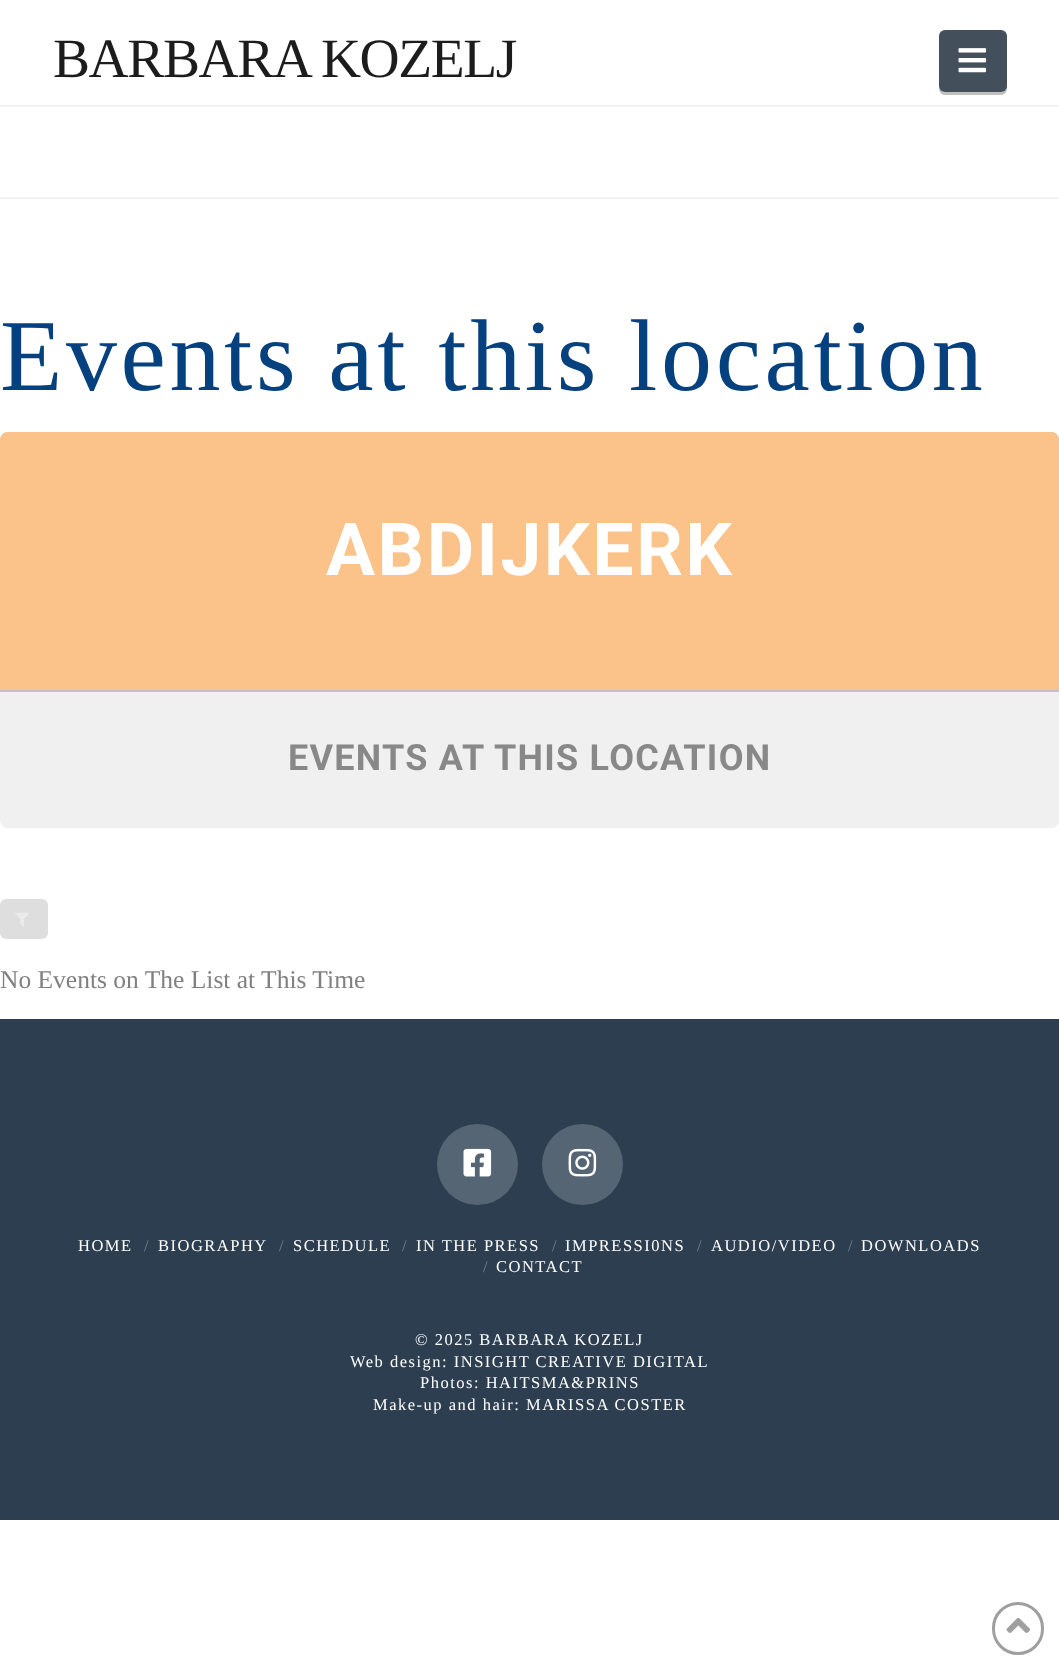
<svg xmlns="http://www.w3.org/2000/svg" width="1059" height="1669">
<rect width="100%" height="100%" fill="#fff"/>
<text x="53" y="77" style="font-family:Liberation Serif;font-size:55.5px;letter-spacing:-1.4px;fill:#1c1c1c">BARBARA KOZELJ</text>
<path d="M939 86v3c0 3 3 6 6 6h56c3 0 6-3 6-6v-50l-1-2v49c0 3-2 6-6 6h-55c-3 0-6-3-6-6z" fill="#bfbfbf"/>
<rect x="939" y="30" width="68" height="62" rx="6" fill="#434f5b"/>
<image x="958" y="48" width="29" height="25" href="media/1.png"/>
<rect y="105" width="1059" height="2" fill="#f2f2f2"/>
<rect y="197" width="1059" height="2" fill="#f2f2f2"/>
<text x="0" y="390" style="font-family:Liberation Serif;font-size:102px;letter-spacing:3.6px;fill:#04417e">Events at this location</text>
<path d="M8 432h1043c4.5 0 8 3.5 8 8v250h-1059v-250c0-4.5 3.5-8 8-8z" fill="#dcdcdc"/>
<path d="M8 432h1043c4.5 0 8 3.5 8 8v250h-1059v-250c0-4.5 3.5-8 8-8z" fill="#ffbf80e3"/>
<text x="326" y="575" style="font-family:Roboto;font-size:73px;font-weight:bold;letter-spacing:2.5px;fill:#fff">ABDIJKERK</text>
<path d="M0 690h1059v130c0 4.5-3.5 8-8 8h-1043c-4.5 0-8-3.5-8-8z" fill="#f0f0f0"/>
<rect y="690" width="1059" height="2" fill="#c1c1c1"/>
<text x="288" y="770" style="font-family:Roboto;font-size:36px;font-weight:bold;letter-spacing:1.25px;fill:#888">EVENTS AT THIS LOCATION</text>
<rect y="899" width="48" height="40" rx="6" fill="#dedede"/>
<image x="15" y="912" width="14" height="15" href="media/2.png"/>
<text x="0" y="988" style="font-family:Liberation Serif;font-size:25.5px;fill:#808080">No Events on The List at This Time</text>
<rect y="1019" width="1059" height="501" fill="#2c3e50"/>
<circle cx="477.5" cy="1164.5" r="40.5" fill="#566573"/>
<image x="463" y="1148" width="29" height="29" href="media/3.png"/>
<circle cx="582.5" cy="1164.5" r="40.5" fill="#566573"/>
<image x="568" y="1148" width="29" height="29" href="media/4.png"/>
<text x="78" y="1251" style="font-family:Liberation Serif;font-size:16.5px;letter-spacing:1.5px;fill:#fff">HOME</text>
<text x="144" y="1251" style="font-family:Liberation Serif;font-size:16.5px;fill:#76828d">/</text>
<text x="158" y="1251" style="font-family:Liberation Serif;font-size:16.5px;letter-spacing:1.5px;fill:#fff">BIOGRAPHY</text>
<text x="279" y="1251" style="font-family:Liberation Serif;font-size:16.5px;fill:#76828d">/</text>
<text x="293" y="1251" style="font-family:Liberation Serif;font-size:16.5px;letter-spacing:1.5px;fill:#fff">SCHEDULE</text>
<text x="402" y="1251" style="font-family:Liberation Serif;font-size:16.5px;fill:#76828d">/</text>
<text x="416" y="1251" style="font-family:Liberation Serif;font-size:16.5px;letter-spacing:1.5px;fill:#fff">IN THE PRESS</text>
<text x="552" y="1251" style="font-family:Liberation Serif;font-size:16.5px;fill:#76828d">/</text>
<text x="565" y="1251" style="font-family:Liberation Serif;font-size:16.5px;letter-spacing:1.5px;fill:#fff">IMPRESSI0NS</text>
<text x="697" y="1251" style="font-family:Liberation Serif;font-size:16.5px;fill:#76828d">/</text>
<text x="711" y="1251" style="font-family:Liberation Serif;font-size:16.5px;letter-spacing:1.5px;fill:#fff">AUDIO/VIDEO</text>
<text x="848" y="1251" style="font-family:Liberation Serif;font-size:16.5px;fill:#76828d">/</text>
<text x="861" y="1251" style="font-family:Liberation Serif;font-size:16.5px;letter-spacing:1.5px;fill:#fff">DOWNLOADS</text>
<text x="483" y="1272" style="font-family:Liberation Serif;font-size:16.5px;fill:#76828d">/</text>
<text x="496" y="1272" style="font-family:Liberation Serif;font-size:16.5px;letter-spacing:1.5px;fill:#fff">CONTACT</text>
<text x="415" y="1345" style="font-family:Liberation Serif;font-size:16.5px;letter-spacing:1.5px;fill:#fff">© 2025 BARBARA KOZELJ</text>
<text x="350" y="1367" style="font-family:Liberation Serif;font-size:16.5px;letter-spacing:1.5px;fill:#fff">Web design: INSIGHT CREATIVE DIGITAL</text>
<text x="420" y="1388" style="font-family:Liberation Serif;font-size:16.5px;letter-spacing:1.5px;fill:#fff">Photos: HAITSMA&amp;PRINS</text>
<text x="373" y="1410" style="font-family:Liberation Serif;font-size:16.5px;letter-spacing:1.5px;fill:#fff">Make-up and hair: MARISSA COSTER</text>
<rect x="993.5" y="1603.5" width="49" height="50" rx="24.5" fill="none" stroke="#9f9f9f" stroke-width="3"/>
<image x="1006" y="1618" width="24" height="15" href="media/5.png"/>
</svg>
